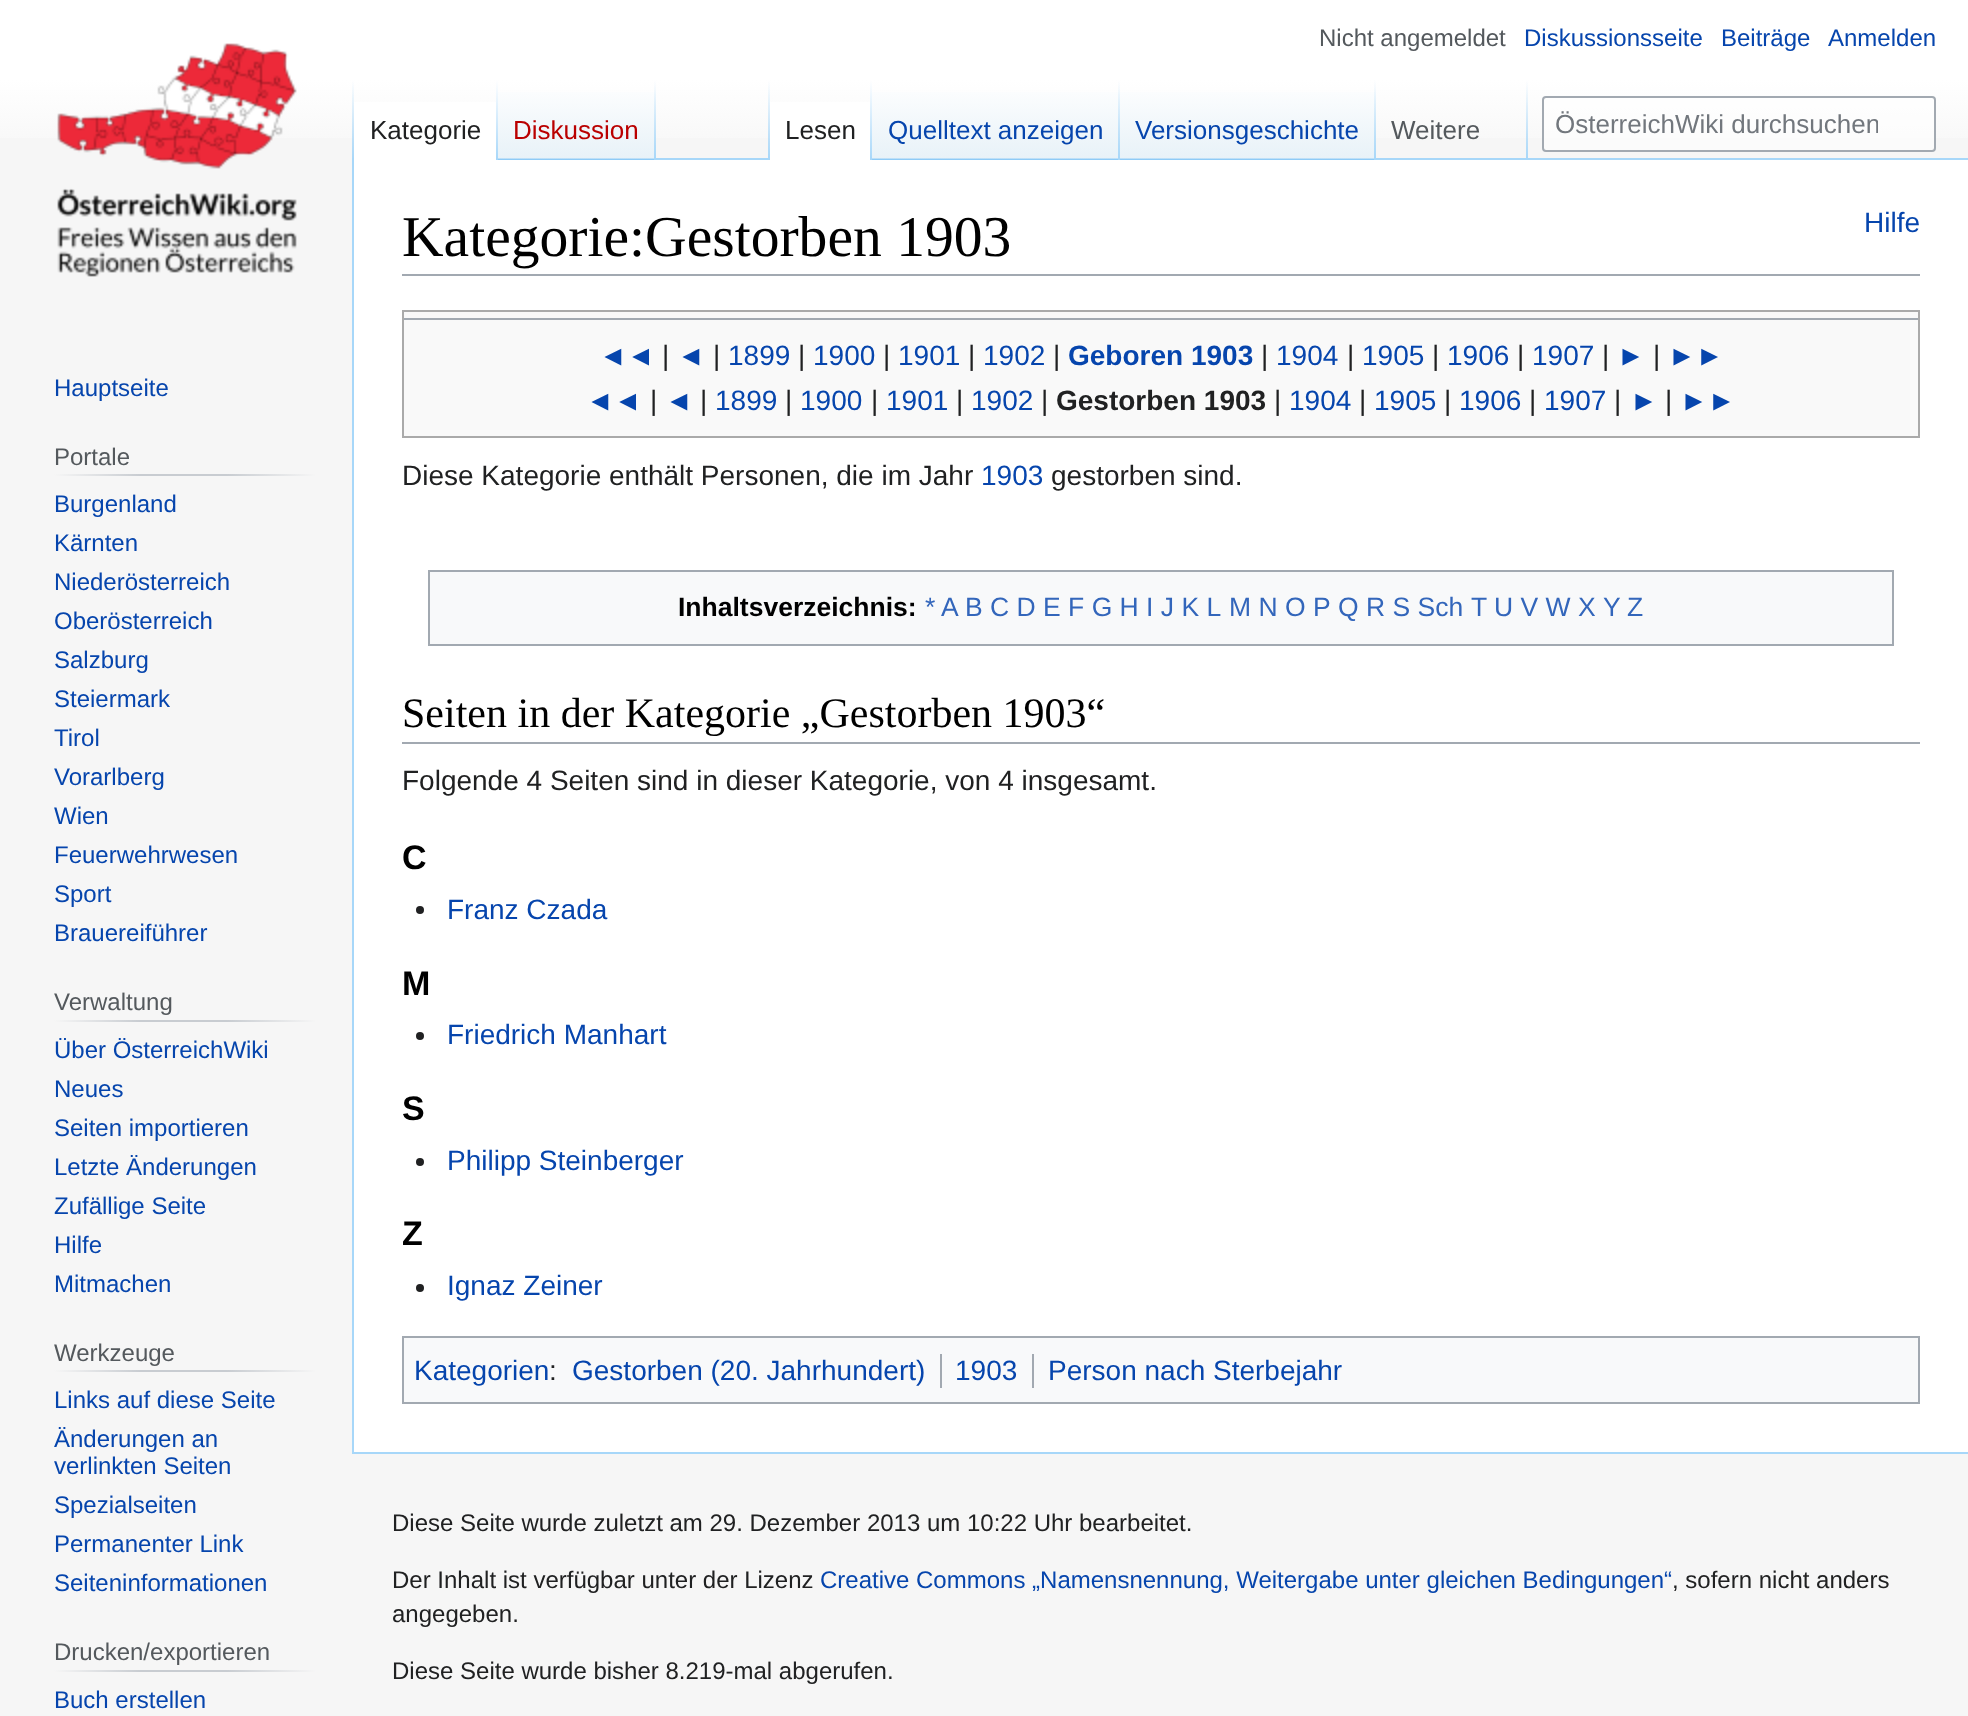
<svg xmlns="http://www.w3.org/2000/svg" width="1968" height="1716">
<defs>
<linearGradient id="g1" gradientUnits="userSpaceOnUse" x1="984" y1="0" x2="984" y2="160"><stop offset="0.5" stop-color="#fff"/><stop offset="1" stop-color="#f6f6f6"/></linearGradient>
<linearGradient id="g2" gradientUnits="userSpaceOnUse" x1="353" y1="80" x2="353" y2="160"><stop offset="0" stop-color="#a7d7f9" stop-opacity="0"/><stop offset="1" stop-color="#a7d7f9"/></linearGradient>
<linearGradient id="g3" gradientUnits="userSpaceOnUse" x1="497" y1="80" x2="497" y2="160"><stop offset="0" stop-color="#fff"/><stop offset="1" stop-color="#a7d7f9"/></linearGradient>
<linearGradient id="g4" gradientUnits="userSpaceOnUse" x1="577" y1="160" x2="577" y2="80"><stop offset="0" stop-color="#77c1f6"/><stop offset="0.03" stop-color="#e8f2f8"/><stop offset="1" stop-color="#fff"/></linearGradient>
<linearGradient id="g5" gradientUnits="userSpaceOnUse" x1="655" y1="80" x2="655" y2="160"><stop offset="0" stop-color="#a7d7f9" stop-opacity="0"/><stop offset="1" stop-color="#a7d7f9"/></linearGradient>
<linearGradient id="g6" gradientUnits="userSpaceOnUse" x1="769" y1="80" x2="769" y2="160"><stop offset="0" stop-color="#a7d7f9" stop-opacity="0"/><stop offset="1" stop-color="#a7d7f9"/></linearGradient>
<linearGradient id="g7" gradientUnits="userSpaceOnUse" x1="871" y1="80" x2="871" y2="160"><stop offset="0" stop-color="#fff"/><stop offset="1" stop-color="#a7d7f9"/></linearGradient>
<linearGradient id="g8" gradientUnits="userSpaceOnUse" x1="996" y1="160" x2="996" y2="80"><stop offset="0" stop-color="#77c1f6"/><stop offset="0.03" stop-color="#e8f2f8"/><stop offset="1" stop-color="#fff"/></linearGradient>
<linearGradient id="g9" gradientUnits="userSpaceOnUse" x1="1119" y1="80" x2="1119" y2="160"><stop offset="0" stop-color="#a7d7f9" stop-opacity="0"/><stop offset="1" stop-color="#a7d7f9"/></linearGradient>
<linearGradient id="g10" gradientUnits="userSpaceOnUse" x1="1248" y1="160" x2="1248" y2="80"><stop offset="0" stop-color="#77c1f6"/><stop offset="0.03" stop-color="#e8f2f8"/><stop offset="1" stop-color="#fff"/></linearGradient>
<linearGradient id="g11" gradientUnits="userSpaceOnUse" x1="1375" y1="80" x2="1375" y2="160"><stop offset="0" stop-color="#a7d7f9" stop-opacity="0"/><stop offset="1" stop-color="#a7d7f9"/></linearGradient>
<linearGradient id="g12" gradientUnits="userSpaceOnUse" x1="1527" y1="80" x2="1527" y2="160"><stop offset="0" stop-color="#a7d7f9" stop-opacity="0"/><stop offset="1" stop-color="#a7d7f9"/></linearGradient>
<clipPath id="clip1"><rect x="1554" y="110" width="324" height="30"/></clipPath>
<linearGradient id="g13" gradientUnits="userSpaceOnUse" x1="54" y1="475" x2="316" y2="475"><stop offset="0" stop-color="#f6f6f6"/><stop offset="0.33" stop-color="#c8ccd1"/><stop offset="0.66" stop-color="#c8ccd1"/><stop offset="1" stop-color="#f6f6f6"/></linearGradient>
<linearGradient id="g14" gradientUnits="userSpaceOnUse" x1="54" y1="1021" x2="316" y2="1021"><stop offset="0" stop-color="#f6f6f6"/><stop offset="0.33" stop-color="#c8ccd1"/><stop offset="0.66" stop-color="#c8ccd1"/><stop offset="1" stop-color="#f6f6f6"/></linearGradient>
<linearGradient id="g15" gradientUnits="userSpaceOnUse" x1="54" y1="1371" x2="316" y2="1371"><stop offset="0" stop-color="#f6f6f6"/><stop offset="0.33" stop-color="#c8ccd1"/><stop offset="0.66" stop-color="#c8ccd1"/><stop offset="1" stop-color="#f6f6f6"/></linearGradient>
<linearGradient id="g16" gradientUnits="userSpaceOnUse" x1="54" y1="1671" x2="316" y2="1671"><stop offset="0" stop-color="#f6f6f6"/><stop offset="0.33" stop-color="#c8ccd1"/><stop offset="0.66" stop-color="#c8ccd1"/><stop offset="1" stop-color="#f6f6f6"/></linearGradient>
</defs>
<rect width="100%" height="100%" fill="#f6f6f6"/>
<rect width="1968" height="138" fill="url(#g1)"/>
<text x="1319" y="46" style="font-family:Liberation Sans;font-size:24px;fill:#54595d">Nicht angemeldet</text>
<text x="1524" y="46" style="font-family:Liberation Sans;font-size:24px;fill:#0645ad">Diskussionsseite</text>
<text x="1721" y="46" style="font-family:Liberation Sans;font-size:24px;fill:#0645ad">Beiträge</text>
<text x="1828" y="46" style="font-family:Liberation Sans;font-size:24px;fill:#0645ad">Anmelden</text>
<rect x="352" y="1452" width="1616" height="2" fill="#a7d7f9"/>
<rect x="352" y="158" width="2" height="1296" fill="#a7d7f9"/>
<rect x="352" y="80" width="2" height="80" fill="url(#g2)"/>
<rect x="354" y="102" width="142" height="58" fill="#fff"/>
<rect x="496" y="80" width="2" height="80" fill="url(#g3)"/>
<text x="370" y="139" style="font-family:Liberation Sans;font-size:26px;fill:#202122">Kategorie</text>
<rect x="498" y="92" width="158" height="68" fill="url(#g4)"/>
<rect x="654" y="80" width="2" height="80" fill="url(#g5)"/>
<text x="513" y="139" style="font-family:Liberation Sans;font-size:26px;fill:#ba0000">Diskussion</text>
<rect x="656" y="158" width="1312" height="2" fill="#a7d7f9"/>
<rect x="768" y="80" width="2" height="80" fill="url(#g6)"/>
<rect x="770" y="102" width="100" height="58" fill="#fff"/>
<rect x="870" y="80" width="2" height="80" fill="url(#g7)"/>
<text x="785" y="139" style="font-family:Liberation Sans;font-size:26px;fill:#202122">Lesen</text>
<rect x="872" y="92" width="248" height="68" fill="url(#g8)"/>
<rect x="1118" y="80" width="2" height="80" fill="url(#g9)"/>
<text x="888" y="139" style="font-family:Liberation Sans;font-size:26px;fill:#0645ad">Quelltext anzeigen</text>
<rect x="1120" y="92" width="256" height="68" fill="url(#g10)"/>
<rect x="1374" y="80" width="2" height="80" fill="url(#g11)"/>
<text x="1135" y="139" style="font-family:Liberation Sans;font-size:26px;fill:#0645ad">Versionsgeschichte</text>
<rect x="1526" y="80" width="2" height="80" fill="url(#g12)"/>
<text x="1391" y="139" style="font-family:Liberation Sans;font-size:26px;fill:#54595d">Weitere</text>
<rect x="1543" y="97" width="392" height="54" rx="3" fill="#ffffff80" stroke="#a2a9b1" stroke-width="2"/>
<g clip-path="url(#clip1)">
<text x="1555" y="133" style="font-family:Liberation Sans;font-size:26px;fill:#72777d">ÖsterreichWiki durchsuchen</text>
</g>
<image x="57" y="43" width="240" height="234" href="media/1.png"/>
<text x="54" y="396" style="font-family:Liberation Sans;font-size:24px;fill:#0645ad">Hauptseite</text>
<rect x="54" y="474" width="262" height="2" fill="url(#g13)"/>
<text x="54" y="465" style="font-family:Liberation Sans;font-size:24px;fill:#54595d">Portale</text>
<text x="54" y="512" style="font-family:Liberation Sans;font-size:24px;fill:#0645ad">Burgenland</text>
<text x="54" y="551" style="font-family:Liberation Sans;font-size:24px;fill:#0645ad">Kärnten</text>
<text x="54" y="590" style="font-family:Liberation Sans;font-size:24px;fill:#0645ad">Niederösterreich</text>
<text x="54" y="629" style="font-family:Liberation Sans;font-size:24px;fill:#0645ad">Oberösterreich</text>
<text x="54" y="668" style="font-family:Liberation Sans;font-size:24px;fill:#0645ad">Salzburg</text>
<text x="54" y="707" style="font-family:Liberation Sans;font-size:24px;fill:#0645ad">Steiermark</text>
<text x="54" y="746" style="font-family:Liberation Sans;font-size:24px;fill:#0645ad">Tirol</text>
<text x="54" y="785" style="font-family:Liberation Sans;font-size:24px;fill:#0645ad">Vorarlberg</text>
<text x="54" y="824" style="font-family:Liberation Sans;font-size:24px;fill:#0645ad">Wien</text>
<text x="54" y="863" style="font-family:Liberation Sans;font-size:24px;fill:#0645ad">Feuerwehrwesen</text>
<text x="54" y="902" style="font-family:Liberation Sans;font-size:24px;fill:#0645ad">Sport</text>
<text x="54" y="941" style="font-family:Liberation Sans;font-size:24px;fill:#0645ad">Brauereiführer</text>
<rect x="54" y="1020" width="262" height="2" fill="url(#g14)"/>
<text x="54" y="1010" style="font-family:Liberation Sans;font-size:24px;fill:#54595d">Verwaltung</text>
<text x="54" y="1058" style="font-family:Liberation Sans;font-size:24px;fill:#0645ad">Über ÖsterreichWiki</text>
<text x="54" y="1097" style="font-family:Liberation Sans;font-size:24px;fill:#0645ad">Neues</text>
<text x="54" y="1136" style="font-family:Liberation Sans;font-size:24px;fill:#0645ad">Seiten importieren</text>
<text x="54" y="1175" style="font-family:Liberation Sans;font-size:24px;fill:#0645ad">Letzte Änderungen</text>
<text x="54" y="1214" style="font-family:Liberation Sans;font-size:24px;fill:#0645ad">Zufällige Seite</text>
<text x="54" y="1253" style="font-family:Liberation Sans;font-size:24px;fill:#0645ad">Hilfe</text>
<text x="54" y="1292" style="font-family:Liberation Sans;font-size:24px;fill:#0645ad">Mitmachen</text>
<rect x="54" y="1370" width="262" height="2" fill="url(#g15)"/>
<text x="54" y="1361" style="font-family:Liberation Sans;font-size:24px;fill:#54595d">Werkzeuge</text>
<text x="54" y="1408" style="font-family:Liberation Sans;font-size:24px;fill:#0645ad">Links auf diese Seite</text>
<text x="54" y="1447" style="font-family:Liberation Sans;font-size:24px;fill:#0645ad">Änderungen an</text>
<text x="54" y="1474" style="font-family:Liberation Sans;font-size:24px;fill:#0645ad">verlinkten Seiten</text>
<text x="54" y="1513" style="font-family:Liberation Sans;font-size:24px;fill:#0645ad">Spezialseiten</text>
<text x="54" y="1552" style="font-family:Liberation Sans;font-size:24px;fill:#0645ad">Permanenter Link</text>
<text x="54" y="1591" style="font-family:Liberation Sans;font-size:24px;fill:#0645ad">Seiteninformationen</text>
<rect x="54" y="1670" width="262" height="2" fill="url(#g16)"/>
<text x="54" y="1660" style="font-family:Liberation Sans;font-size:24px;fill:#54595d">Drucken/exportieren</text>
<text x="54" y="1708" style="font-family:Liberation Sans;font-size:24px;fill:#0645ad">Buch erstellen</text>
<rect x="354" y="160" width="1614" height="1292" fill="#fff"/>
<rect x="402" y="274" width="1518" height="2" fill="#a2a9b1"/>
<text x="402" y="256" style="font-family:Liberation Serif;font-size:57.6px;fill:#000">Kategorie:Gestorben 1903</text>
<text x="1864" y="232" style="font-family:Liberation Sans;font-size:28px;fill:#0645ad">Hilfe</text>
<rect x="403" y="311" width="1516" height="126" fill="#f9f9f9" stroke="#aaa" stroke-width="2"/>
<rect x="404" y="318" width="1514" height="2" fill="#a2a9b1"/>
<text x="599" y="365" style="font-family:Liberation Sans;font-size:28px;fill:#0645ad">◄◄</text>
<text x="662" y="365" style="font-family:Liberation Sans;font-size:28px;fill:#202122">|</text>
<text x="677" y="365" style="font-family:Liberation Sans;font-size:28px;fill:#0645ad">◄</text>
<text x="713" y="365" style="font-family:Liberation Sans;font-size:28px;fill:#202122">|</text>
<text x="728" y="365" style="font-family:Liberation Sans;font-size:28px;fill:#0645ad">1899</text>
<text x="798" y="365" style="font-family:Liberation Sans;font-size:28px;fill:#202122">|</text>
<text x="813" y="365" style="font-family:Liberation Sans;font-size:28px;fill:#0645ad">1900</text>
<text x="883" y="365" style="font-family:Liberation Sans;font-size:28px;fill:#202122">|</text>
<text x="898" y="365" style="font-family:Liberation Sans;font-size:28px;fill:#0645ad">1901</text>
<text x="968" y="365" style="font-family:Liberation Sans;font-size:28px;fill:#202122">|</text>
<text x="983" y="365" style="font-family:Liberation Sans;font-size:28px;fill:#0645ad">1902</text>
<text x="1053" y="365" style="font-family:Liberation Sans;font-size:28px;fill:#202122">|</text>
<text x="1068" y="365" style="font-family:Liberation Sans;font-size:28px;font-weight:bold;fill:#0645ad">Geboren 1903</text>
<text x="1261" y="365" style="font-family:Liberation Sans;font-size:28px;fill:#202122">|</text>
<text x="1276" y="365" style="font-family:Liberation Sans;font-size:28px;fill:#0645ad">1904</text>
<text x="1347" y="365" style="font-family:Liberation Sans;font-size:28px;fill:#202122">|</text>
<text x="1362" y="365" style="font-family:Liberation Sans;font-size:28px;fill:#0645ad">1905</text>
<text x="1432" y="365" style="font-family:Liberation Sans;font-size:28px;fill:#202122">|</text>
<text x="1447" y="365" style="font-family:Liberation Sans;font-size:28px;fill:#0645ad">1906</text>
<text x="1517" y="365" style="font-family:Liberation Sans;font-size:28px;fill:#202122">|</text>
<text x="1532" y="365" style="font-family:Liberation Sans;font-size:28px;fill:#0645ad">1907</text>
<text x="1602" y="365" style="font-family:Liberation Sans;font-size:28px;fill:#202122">|</text>
<text x="1617" y="365" style="font-family:Liberation Sans;font-size:28px;fill:#0645ad">►</text>
<text x="1653" y="365" style="font-family:Liberation Sans;font-size:28px;fill:#202122">|</text>
<text x="1668" y="365" style="font-family:Liberation Sans;font-size:28px;fill:#0645ad">►►</text>
<text x="586" y="410" style="font-family:Liberation Sans;font-size:28px;fill:#0645ad">◄◄</text>
<text x="650" y="410" style="font-family:Liberation Sans;font-size:28px;fill:#202122">|</text>
<text x="665" y="410" style="font-family:Liberation Sans;font-size:28px;fill:#0645ad">◄</text>
<text x="700" y="410" style="font-family:Liberation Sans;font-size:28px;fill:#202122">|</text>
<text x="715" y="410" style="font-family:Liberation Sans;font-size:28px;fill:#0645ad">1899</text>
<text x="785" y="410" style="font-family:Liberation Sans;font-size:28px;fill:#202122">|</text>
<text x="800" y="410" style="font-family:Liberation Sans;font-size:28px;fill:#0645ad">1900</text>
<text x="871" y="410" style="font-family:Liberation Sans;font-size:28px;fill:#202122">|</text>
<text x="886" y="410" style="font-family:Liberation Sans;font-size:28px;fill:#0645ad">1901</text>
<text x="956" y="410" style="font-family:Liberation Sans;font-size:28px;fill:#202122">|</text>
<text x="971" y="410" style="font-family:Liberation Sans;font-size:28px;fill:#0645ad">1902</text>
<text x="1041" y="410" style="font-family:Liberation Sans;font-size:28px;fill:#202122">|</text>
<text x="1056" y="410" style="font-family:Liberation Sans;font-size:28px;font-weight:bold;fill:#202122">Gestorben 1903</text>
<text x="1274" y="410" style="font-family:Liberation Sans;font-size:28px;fill:#202122">|</text>
<text x="1289" y="410" style="font-family:Liberation Sans;font-size:28px;fill:#0645ad">1904</text>
<text x="1359" y="410" style="font-family:Liberation Sans;font-size:28px;fill:#202122">|</text>
<text x="1374" y="410" style="font-family:Liberation Sans;font-size:28px;fill:#0645ad">1905</text>
<text x="1444" y="410" style="font-family:Liberation Sans;font-size:28px;fill:#202122">|</text>
<text x="1459" y="410" style="font-family:Liberation Sans;font-size:28px;fill:#0645ad">1906</text>
<text x="1529" y="410" style="font-family:Liberation Sans;font-size:28px;fill:#202122">|</text>
<text x="1544" y="410" style="font-family:Liberation Sans;font-size:28px;fill:#0645ad">1907</text>
<text x="1614" y="410" style="font-family:Liberation Sans;font-size:28px;fill:#202122">|</text>
<text x="1630" y="410" style="font-family:Liberation Sans;font-size:28px;fill:#0645ad">►</text>
<text x="1665" y="410" style="font-family:Liberation Sans;font-size:28px;fill:#202122">|</text>
<text x="1680" y="410" style="font-family:Liberation Sans;font-size:28px;fill:#0645ad">►►</text>
<text x="402" y="485" style="font-family:Liberation Sans;font-size:28px;fill:#202122">Diese Kategorie enthält Personen, die im Jahr</text>
<text x="981" y="485" style="font-family:Liberation Sans;font-size:28px;fill:#0645ad">1903</text>
<text x="1051" y="485" style="font-family:Liberation Sans;font-size:28px;fill:#202122">gestorben sind.</text>
<rect x="429" y="571" width="1464" height="74" fill="#f8f9fa" stroke="#a2a9b1" stroke-width="2"/>
<text x="678" y="616" style="font-family:Liberation Sans;font-size:26.5px;font-weight:bold;fill:#000">Inhaltsverzeichnis:</text>
<text x="925" y="616" style="font-family:Liberation Sans;font-size:26.5px;fill:#36b">*</text>
<text x="941" y="616" style="font-family:Liberation Sans;font-size:26.5px;fill:#36b">A</text>
<text x="965" y="616" style="font-family:Liberation Sans;font-size:26.5px;fill:#36b">B C D E F G H I J K L</text>
<text x="1229" y="616" style="font-family:Liberation Sans;font-size:26.5px;fill:#36b">M N O P</text>
<text x="1338" y="616" style="font-family:Liberation Sans;font-size:26.5px;fill:#36b">Q R S Sch</text>
<text x="1471" y="616" style="font-family:Liberation Sans;font-size:26.5px;fill:#36b">T</text>
<text x="1494" y="616" style="font-family:Liberation Sans;font-size:26.5px;fill:#36b">U V W X</text>
<text x="1603" y="616" style="font-family:Liberation Sans;font-size:26.5px;fill:#36b">Y</text>
<text x="1627" y="616" style="font-family:Liberation Sans;font-size:26.5px;fill:#36b">Z</text>
<rect x="402" y="742" width="1518" height="2" fill="#a2a9b1"/>
<text x="402" y="727" style="font-family:Liberation Serif;font-size:42px;fill:#000">Seiten in der Kategorie „Gestorben 1903“</text>
<text x="402" y="790" style="font-family:Liberation Sans;font-size:28px;fill:#202122">Folgende 4 Seiten sind in dieser Kategorie, von 4 insgesamt.</text>
<text x="402" y="869" style="font-family:Liberation Sans;font-size:34px;font-weight:bold;fill:#000">C</text>
<circle cx="420" cy="910" r="4" fill="#202122"/>
<text x="447" y="919" style="font-family:Liberation Sans;font-size:28px;fill:#0645ad">Franz Czada</text>
<text x="402" y="995" style="font-family:Liberation Sans;font-size:34px;font-weight:bold;fill:#000">M</text>
<circle cx="420" cy="1036" r="4" fill="#202122"/>
<text x="447" y="1044" style="font-family:Liberation Sans;font-size:28px;fill:#0645ad">Friedrich Manhart</text>
<text x="402" y="1120" style="font-family:Liberation Sans;font-size:34px;font-weight:bold;fill:#000">S</text>
<circle cx="420" cy="1162" r="4" fill="#202122"/>
<text x="447" y="1170" style="font-family:Liberation Sans;font-size:28px;fill:#0645ad">Philipp Steinberger</text>
<text x="402" y="1245" style="font-family:Liberation Sans;font-size:34px;font-weight:bold;fill:#000">Z</text>
<circle cx="420" cy="1288" r="4" fill="#202122"/>
<text x="447" y="1295" style="font-family:Liberation Sans;font-size:28px;fill:#0645ad">Ignaz Zeiner</text>
<rect x="403" y="1337" width="1516" height="66" fill="#f8f9fa" stroke="#a2a9b1" stroke-width="2"/>
<text x="414" y="1380" style="font-family:Liberation Sans;font-size:28px;fill:#0645ad">Kategorien</text>
<text x="549" y="1380" style="font-family:Liberation Sans;font-size:28px;fill:#202122">:</text>
<text x="572" y="1380" style="font-family:Liberation Sans;font-size:28px;fill:#0645ad">Gestorben (20. Jahrhundert)</text>
<rect x="940" y="1354" width="2" height="34" fill="#a2a9b1"/>
<text x="955" y="1380" style="font-family:Liberation Sans;font-size:28px;fill:#0645ad">1903</text>
<rect x="1032" y="1354" width="2" height="34" fill="#a2a9b1"/>
<text x="1048" y="1380" style="font-family:Liberation Sans;font-size:28px;fill:#0645ad">Person nach Sterbejahr</text>
<text x="392" y="1531" style="font-family:Liberation Sans;font-size:24px;fill:#202122">Diese Seite wurde zuletzt am 29. Dezember 2013 um 10:22 Uhr bearbeitet.</text>
<text x="392" y="1588" style="font-family:Liberation Sans;font-size:24px;fill:#202122">Der Inhalt ist verfügbar unter der Lizenz</text>
<text x="820" y="1588" style="font-family:Liberation Sans;font-size:24px;fill:#0645ad">Creative Commons „Namensnennung, Weitergabe unter gleichen Bedingungen“</text>
<text x="1672" y="1588" style="font-family:Liberation Sans;font-size:24px;fill:#202122">, sofern nicht anders</text>
<text x="392" y="1622" style="font-family:Liberation Sans;font-size:24px;fill:#202122">angegeben.</text>
<text x="392" y="1679" style="font-family:Liberation Sans;font-size:24px;fill:#202122">Diese Seite wurde bisher 8.219-mal abgerufen.</text>
</svg>
